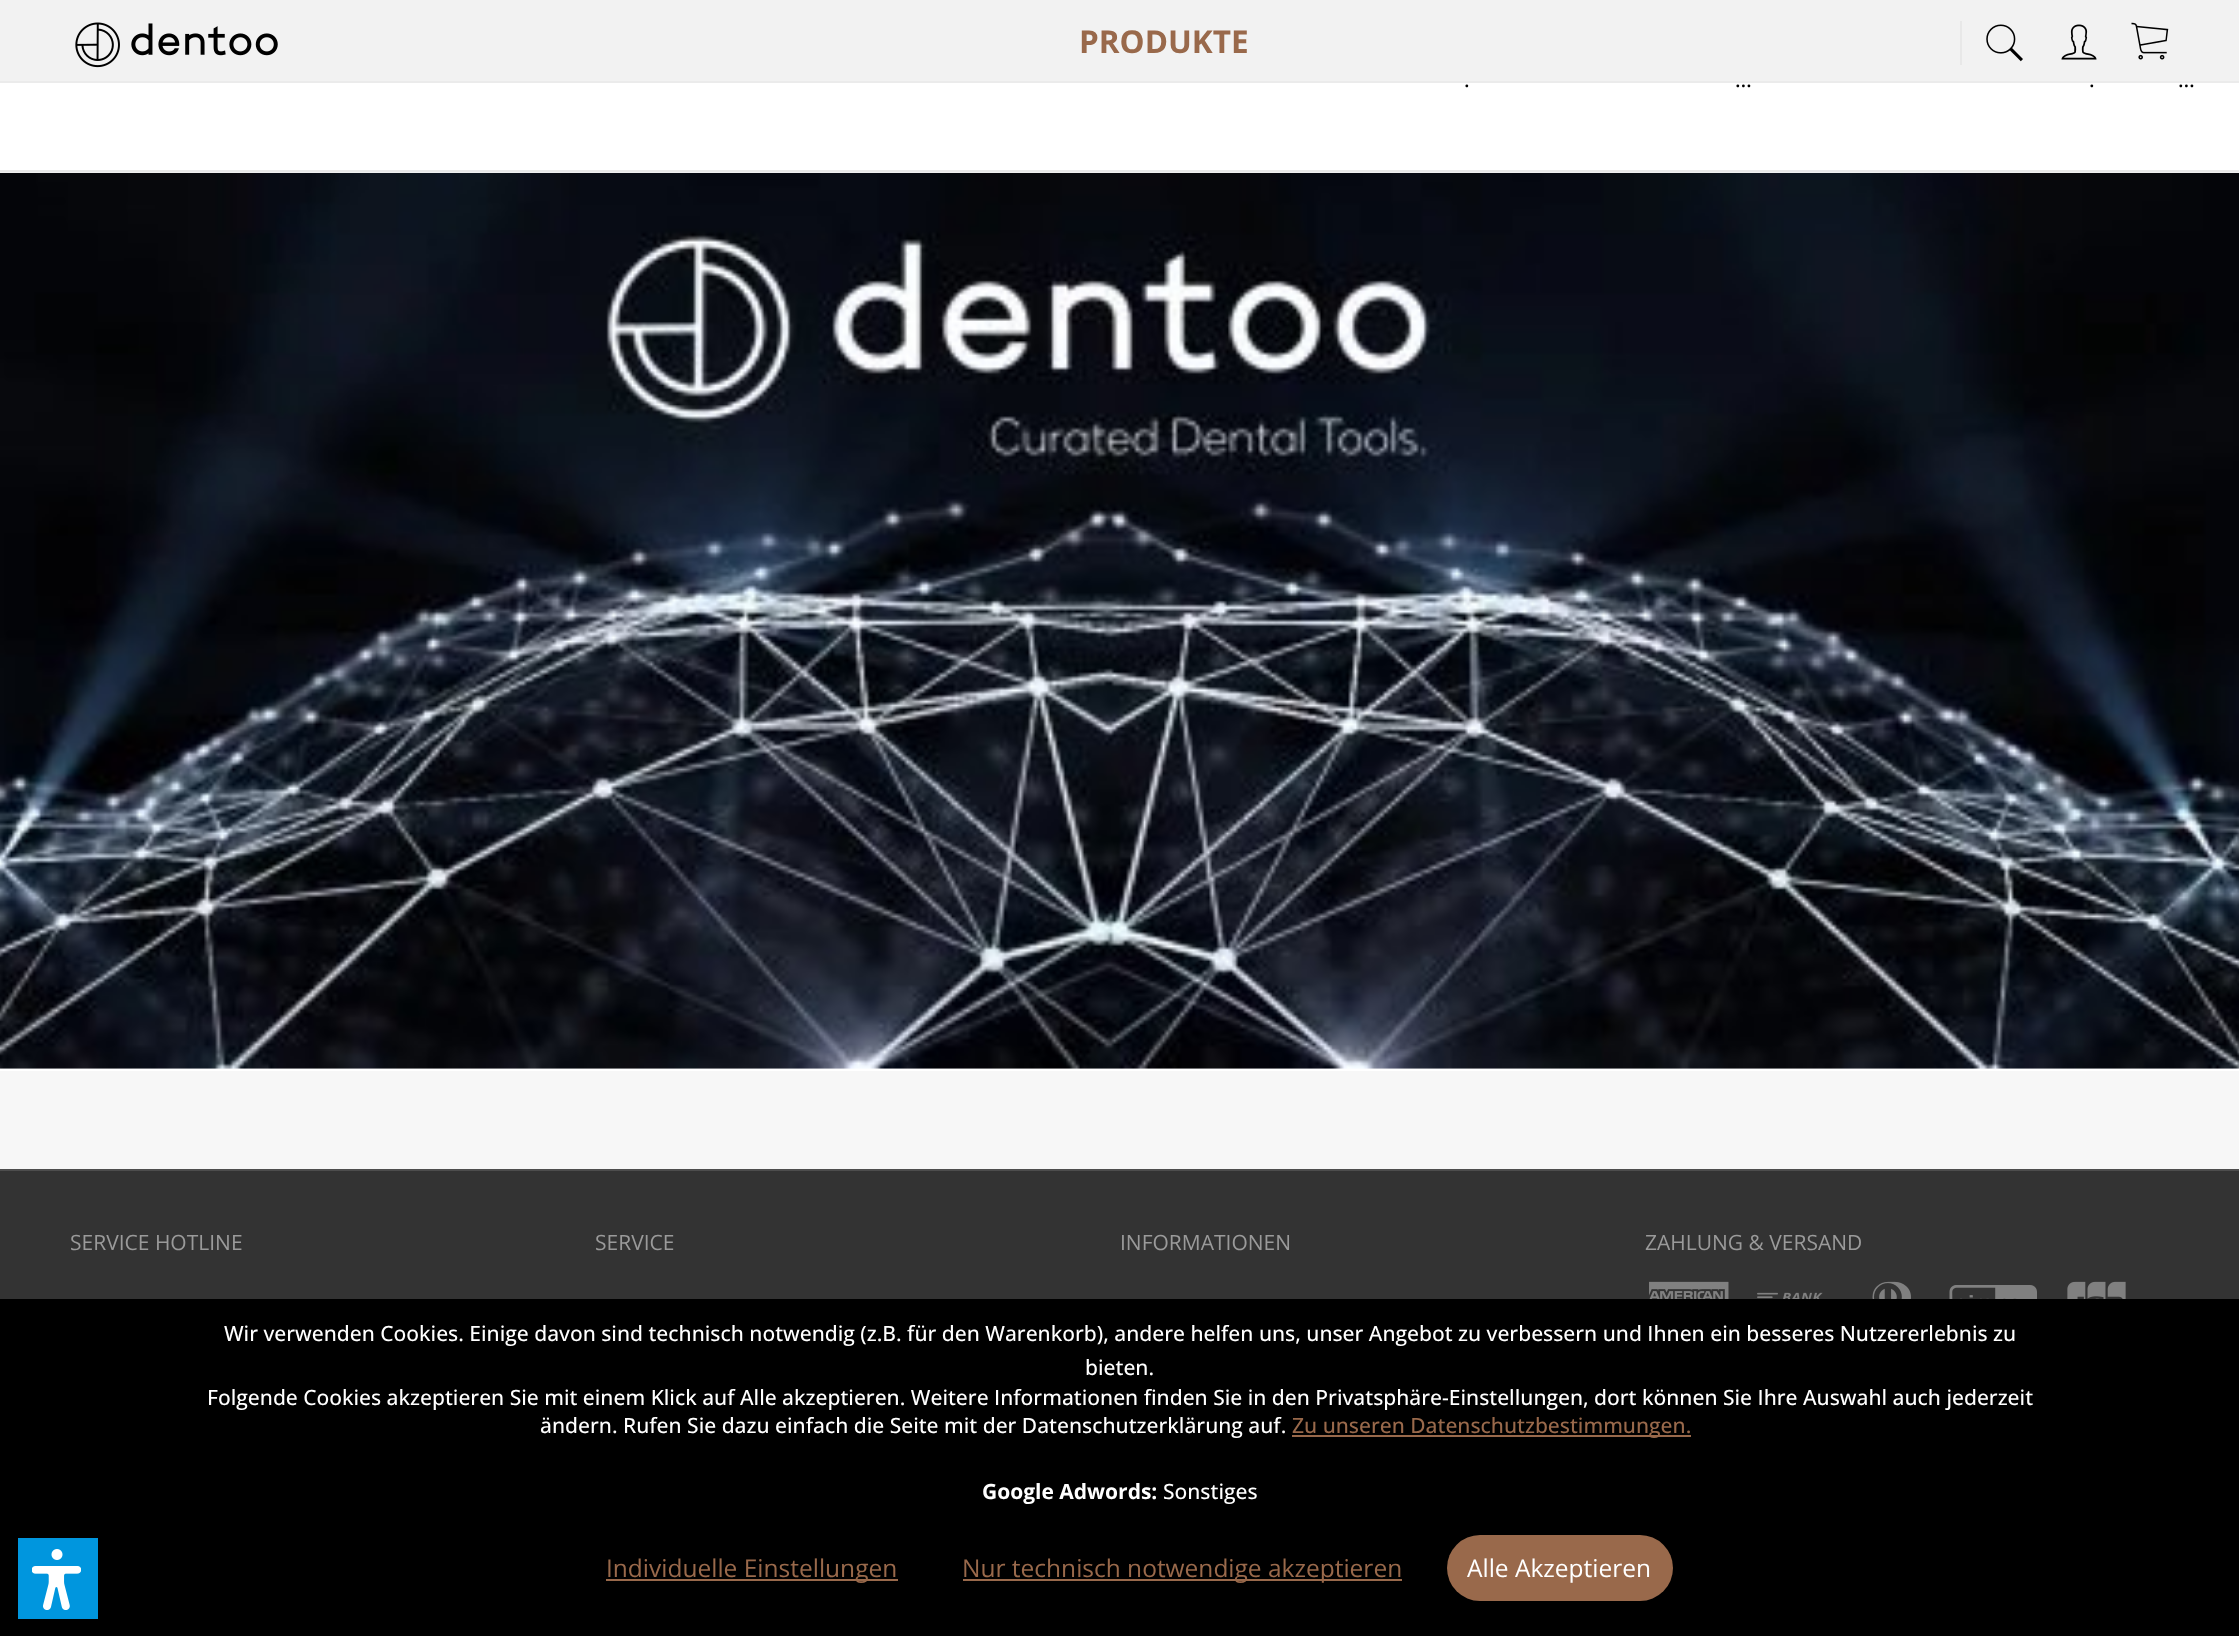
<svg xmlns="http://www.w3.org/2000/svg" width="2239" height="1636">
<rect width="100%" height="100%" fill="#f7f7f7"/>
<rect y="1299" width="2239" height="337" fill="#000"/>
<rect x="18" y="1538" width="80" height="81" fill="#0096de"/>
<image x="32" y="1549" width="49" height="61" href="media/1.png"/>
<rect width="2239" height="81" fill="#f2f2f2"/>
<image x="75" y="22" width="203" height="46" href="media/2.png"/>
<rect x="1960" y="21" width="2" height="44" fill="#e8e8e8"/>
<image x="1986" y="24" width="37" height="38" href="media/3.png"/>
<image x="2061" y="24" width="36" height="36" href="media/4.png"/>
<image x="2131" y="22" width="38" height="38" href="media/5.png"/>
<rect y="81" width="2239" height="2" fill="#ebebeb"/>
<text x="1079" y="53" style="font-family:Open Sans;font-size:31.5px;font-weight:bold;fill:#99694b">PRODUKTE</text>
<rect y="83" width="2239" height="988" fill="#fff"/>
<rect y="170" width="2239" height="2" fill="#e8e8e8"/>
<text x="1464" y="87" style="font-family:Open Sans;font-size:21px;font-weight:500;fill:#000">.</text>
<text x="1735" y="87" style="font-family:Open Sans;font-size:21px;font-weight:500;fill:#000">…</text>
<text x="2089" y="87" style="font-family:Open Sans;font-size:21px;font-weight:500;fill:#000">.</text>
<text x="2178" y="87" style="font-family:Open Sans;font-size:21px;font-weight:500;fill:#000">…</text>
<image x="0" y="172" width="2239" height="897" href="media/6.png"/>
<rect y="1171" width="2239" height="128" fill="#333"/>
<rect y="1169" width="2239" height="2" fill="#4d4d4d"/>
<text x="70" y="1250" style="font-family:Open Sans;font-size:21px;fill:#9a9a9a">SERVICE HOTLINE</text>
<text x="595" y="1250" style="font-family:Open Sans;font-size:21px;fill:#9a9a9a">SERVICE</text>
<text x="1120" y="1250" style="font-family:Open Sans;font-size:21px;fill:#9a9a9a">INFORMATIONEN</text>
<text x="1645" y="1250" style="font-family:Open Sans;font-size:21px;fill:#9a9a9a">ZAHLUNG &amp; VERSAND</text>
<image x="1649" y="1281" width="80" height="18" href="media/7.png"/>
<image x="1757" y="1292" width="66" height="7" href="media/8.png"/>
<image x="1872" y="1281" width="39" height="18" href="media/9.png"/>
<image x="1949" y="1285" width="88" height="14" href="media/10.png"/>
<image x="2067" y="1281" width="59" height="18" href="media/11.png"/>
<text x="224" y="1341" style="font-family:Open Sans;font-size:21px;font-weight:500;fill:#fff">Wir verwenden Cookies. Einige davon sind technisch notwendig (z.B. für den Warenkorb), andere helfen uns, unser Angebot zu verbessern und Ihnen ein besseres Nutzererlebnis zu</text>
<text x="1085" y="1375" style="font-family:Open Sans;font-size:21px;font-weight:500;fill:#fff">bieten.</text>
<text x="207" y="1405" style="font-family:Open Sans;font-size:21px;font-weight:500;fill:#fff">Folgende Cookies akzeptieren Sie mit einem Klick auf Alle akzeptieren. Weitere Informationen finden Sie in den Privatsphäre-Einstellungen, dort können Sie Ihre Auswahl auch jederzeit</text>
<text x="540" y="1433" style="font-family:Open Sans;font-size:21px;font-weight:500;fill:#fff">ändern. Rufen Sie dazu einfach die Seite mit der Datenschutzerklärung auf.</text>
<rect x="1292" y="1435" width="399" height="2" fill="#99694b"/>
<text x="1292" y="1433" style="font-family:Open Sans;font-size:21px;font-weight:500;fill:#99694b">Zu unseren Datenschutzbestimmungen.</text>
<text x="982" y="1499" style="font-family:Open Sans;font-size:21px;font-weight:bold;fill:#fff">Google Adwords:</text>
<text x="1163" y="1499" style="font-family:Open Sans;font-size:21px;font-weight:500;fill:#fff">Sonstiges</text>
<rect x="606" y="1579" width="292" height="2" fill="#99694b"/>
<text x="606" y="1577" style="font-family:Open Sans;font-size:24.5px;fill:#99694b">Individuelle Einstellungen</text>
<rect x="963" y="1579" width="439" height="2" fill="#99694b"/>
<text x="962" y="1577" style="font-family:Open Sans;font-size:24.5px;fill:#99694b">Nur technisch notwendige akzeptieren</text>
<rect x="1447" y="1535" width="226" height="66" rx="33" fill="#99694b"/>
<text x="1467" y="1577" style="font-family:Open Sans;font-size:24.5px;fill:#fff">Alle Akzeptieren</text>
</svg>
